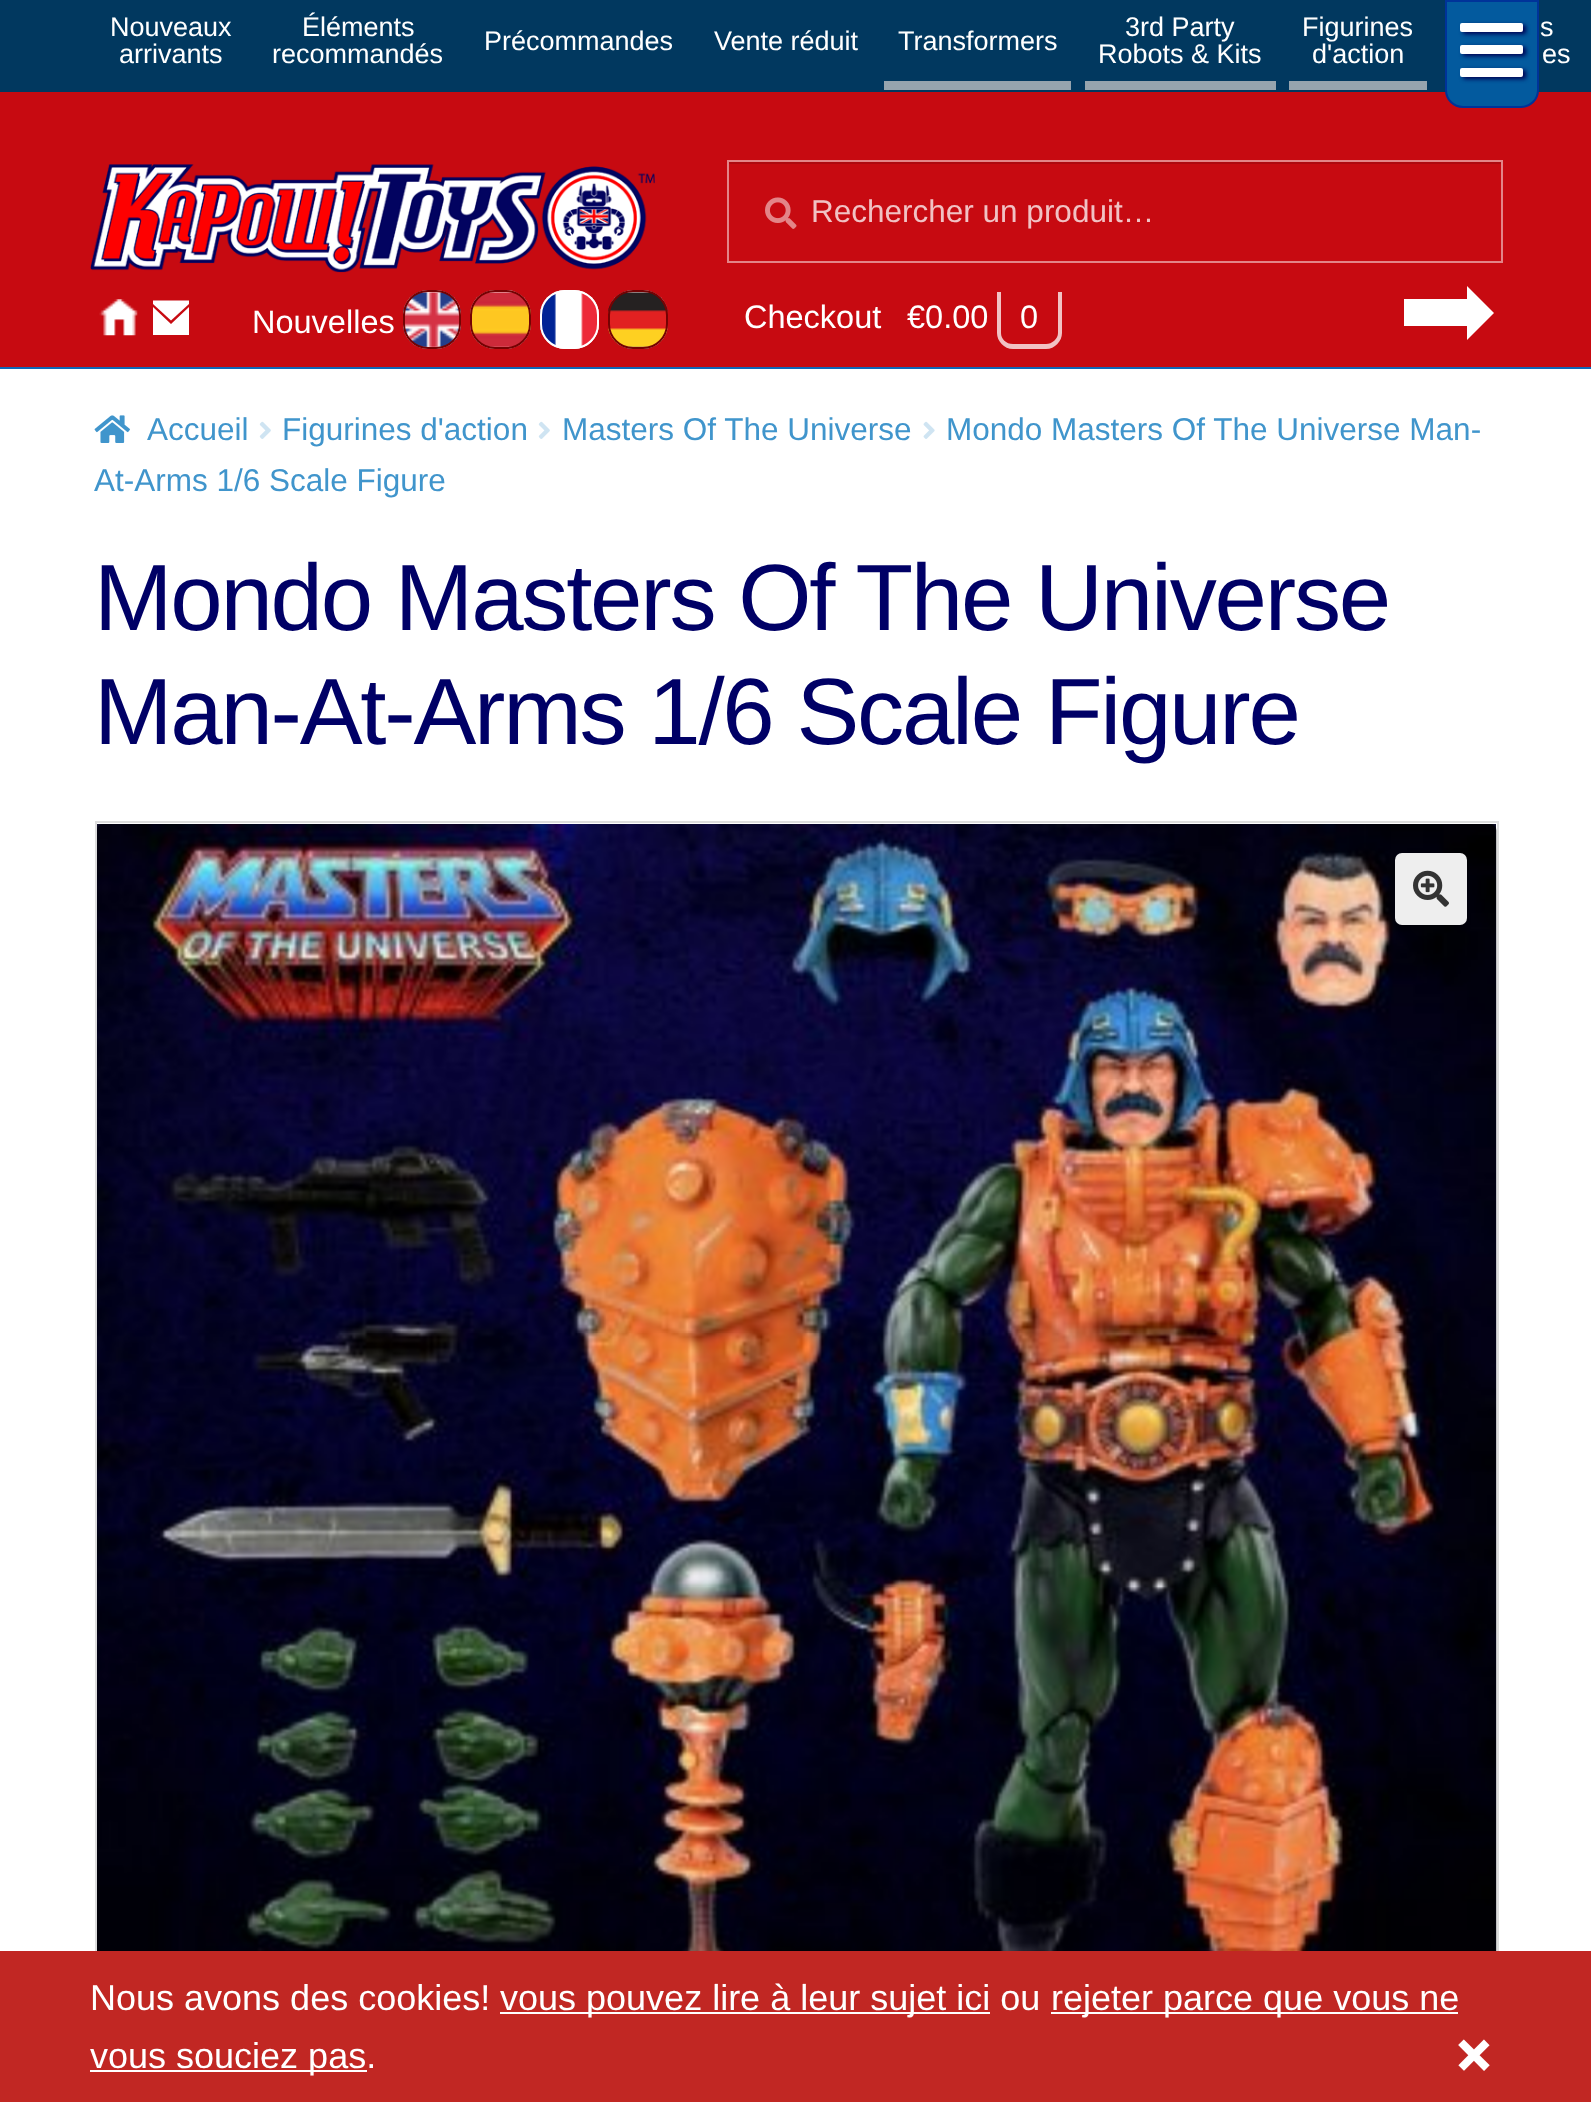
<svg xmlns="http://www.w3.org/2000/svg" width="1591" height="2102">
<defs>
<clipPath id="clip1"><rect x="153" y="299" width="36" height="36"/></clipPath>
</defs>
<rect width="100%" height="100%" fill="#fff"/>
<rect width="1591" height="92" fill="#01385f"/>
<text x="110" y="36" style="font-family:Liberation Sans;font-size:27px;fill:#fff">Nouveaux</text>
<text x="119" y="63" style="font-family:Liberation Sans;font-size:27px;fill:#fff">arrivants</text>
<text x="302" y="36" style="font-family:Liberation Sans;font-size:27px;fill:#fff">Éléments</text>
<text x="272" y="63" style="font-family:Liberation Sans;font-size:27px;fill:#fff">recommandés</text>
<text x="484" y="50" style="font-family:Liberation Sans;font-size:27px;fill:#fff">Précommandes</text>
<text x="714" y="50" style="font-family:Liberation Sans;font-size:27px;fill:#fff">Vente réduit</text>
<rect x="884" y="81" width="187" height="9" fill="#96a4ae"/>
<text x="898" y="50" style="font-family:Liberation Sans;font-size:27px;fill:#fff">Transformers</text>
<rect x="1085" y="81" width="191" height="9" fill="#96a4ae"/>
<text x="1125" y="36" style="font-family:Liberation Sans;font-size:27px;fill:#fff">3rd Party</text>
<text x="1098" y="63" style="font-family:Liberation Sans;font-size:27px;fill:#fff">Robots &amp; Kits</text>
<rect x="1289" y="81" width="138" height="9" fill="#96a4ae"/>
<text x="1302" y="36" style="font-family:Liberation Sans;font-size:27px;fill:#fff">Figurines</text>
<text x="1312" y="63" style="font-family:Liberation Sans;font-size:27px;fill:#fff">d'action</text>
<rect y="92" width="1591" height="275" fill="#c70a11"/>
<path d="M1446 1h92v89c0 9.5-7.5 17-17 17h-58c-9.5 0-17-7.5-17-17z" fill="#035a9e" stroke="#039" stroke-width="2"/>
<rect x="1463" y="25" width="63" height="9" rx="2" fill="#000052" filter="blur(2px)"/>
<rect x="1460" y="23" width="63" height="9" rx="2" fill="#fff"/>
<rect x="1463" y="47" width="63" height="9" rx="2" fill="#000052" filter="blur(2px)"/>
<rect x="1460" y="45" width="63" height="9" rx="2" fill="#fff"/>
<rect x="1463" y="70" width="63" height="9" rx="2" fill="#000052" filter="blur(2px)"/>
<rect x="1460" y="68" width="63" height="9" rx="2" fill="#fff"/>
<text x="1540" y="36" style="font-family:Liberation Sans;font-size:27px;fill:#fff">s</text>
<text x="1542" y="63" style="font-family:Liberation Sans;font-size:27px;fill:#fff">es</text>
<rect y="367" width="1591" height="2" fill="#1067b7"/>
<image x="90" y="164" width="565" height="109" href="media/1.png"/>
<rect x="728" y="161" width="774" height="101" fill="none" stroke="#e38588" stroke-width="2"/>
<image x="765" y="197" width="32" height="32" href="media/2.png"/>
<rect x="729" y="162" width="772" height="2" fill="#ae090f"/>
<text x="811" y="222" style="font-family:Liberation Sans;font-size:31.5px;fill:#f1c2c4">Rechercher un produit…</text>
<image x="99" y="299" width="39" height="37" href="media/3.png"/>
<path d="M153 300.5v3.5l18 16.5l18-16.5v-3.5z" fill="#fff"/>
<g clip-path="url(#clip1)">
<path d="M153 307l18 17l18-17v28.5h-36z" fill="#fff"/>
</g>
<text x="252" y="333" style="font-family:Liberation Sans;font-size:32.5px;fill:#fff">Nouvelles</text>
<rect x="403" y="290" width="58" height="59" rx="25" fill="#f7dadb"/>
<image x="403" y="292" width="58" height="57" href="media/4.png"/>
<rect x="404" y="291" width="56" height="57" rx="24" fill="none" stroke="#750203" stroke-width="2"/>
<rect x="470" y="290" width="61" height="59" rx="25" fill="#f7dadb"/>
<image x="470" y="292" width="61" height="57" href="media/5.png"/>
<rect x="471" y="291" width="59" height="57" rx="24" fill="none" stroke="#750203" stroke-width="2"/>
<rect x="540" y="290" width="59" height="59" rx="25" fill="#fff"/>
<image x="540" y="292" width="59" height="57" href="media/6.png"/>
<rect x="541" y="291" width="57" height="57" rx="24" fill="none" stroke="#fff" stroke-width="2"/>
<rect x="608" y="290" width="60" height="59" rx="25" fill="#f7dadb"/>
<image x="607" y="292" width="61" height="57" href="media/7.png"/>
<rect x="609" y="291" width="58" height="57" rx="24" fill="none" stroke="#750203" stroke-width="2"/>
<text x="744" y="328" style="font-family:Liberation Sans;font-size:32.5px;fill:#fff">Checkout</text>
<text x="907" y="328" style="font-family:Liberation Sans;font-size:32.5px;fill:#fff">€0.00</text>
<path d="M997 292h65v41c0 8-7 16-16 16h-33c-9 0-16-8-16-16zm4 0h57v41c0 6-6 11-12 11h-33c-7 0-12-5-12-11z" fill="#f1c2c4" fill-rule="evenodd"/>
<text x="1020" y="328" style="font-family:Liberation Sans;font-size:32.5px;fill:#fff">0</text>
<rect x="1404" y="299" width="63" height="27" fill="#fff"/>
<path d="M1467 340v-54l27 27z" fill="#fff"/>
<image x="94" y="415" width="36" height="28" href="media/8.png"/>
<text x="147" y="440" style="font-family:Liberation Sans;font-size:31.5px;fill:#4095cc">Accueil</text>
<image x="259" y="421" width="12" height="18" href="media/9.png"/>
<text x="282" y="440" style="font-family:Liberation Sans;font-size:31.5px;fill:#4095cc">Figurines d'action</text>
<image x="538" y="421" width="12" height="18" href="media/9.png"/>
<text x="562" y="440" style="font-family:Liberation Sans;font-size:31.5px;fill:#4095cc">Masters Of The Universe</text>
<image x="923" y="421" width="12" height="18" href="media/10.png"/>
<text x="946" y="440" style="font-family:Liberation Sans;font-size:31.5px;fill:#4095cc">Mondo Masters Of The Universe Man-</text>
<text x="94" y="491" style="font-family:Liberation Sans;font-size:31.5px;fill:#4095cc">At-Arms 1/6 Scale Figure</text>
<text x="94" y="630" style="font-family:Liberation Sans;font-size:94.25px;letter-spacing:-2.25px;fill:#006">Mondo Masters Of The Universe</text>
<text x="94" y="744" style="font-family:Liberation Sans;font-size:94.25px;letter-spacing:-2.25px;fill:#006">Man-At-Arms 1/6 Scale Figure</text>
<rect x="96" y="822" width="1402" height="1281" fill="none" stroke="#ddd" stroke-width="2"/>
<rect x="97" y="824" width="1399" height="1127" fill="#0f0d29"/>
<image x="97" y="824" width="1400" height="1127" href="media/11.png"/>
<rect x="1395" y="853" width="72" height="72" rx="7" fill="#eee"/>
<image x="1413" y="870" width="36" height="37" href="media/12.png"/>
<rect y="1951" width="1591" height="151" fill="#c12723"/>
<text x="90" y="2010" style="font-family:Liberation Sans;font-size:36px;fill:#fff">Nous avons des cookies!</text>
<rect x="500" y="2012" width="490" height="2" fill="#fff"/>
<text x="500" y="2010" style="font-family:Liberation Sans;font-size:36px;fill:#fff">vous pouvez lire à leur sujet ici ou</text>
<rect x="1051" y="2012" width="407" height="2" fill="#fff"/>
<text x="1051" y="2010" style="font-family:Liberation Sans;font-size:36px;fill:#fff">rejeter parce que vous ne</text>
<rect x="90" y="2070" width="277" height="2" fill="#fff"/>
<text x="90" y="2068" style="font-family:Liberation Sans;font-size:36px;fill:#fff">vous souciez pas.</text>
<text x="1476" y="2087" transform="rotate(-45 1476 2087)" style="font-family:Liberation Sans;font-size:72px;font-weight:bold;fill:#fff">+</text>
</svg>
